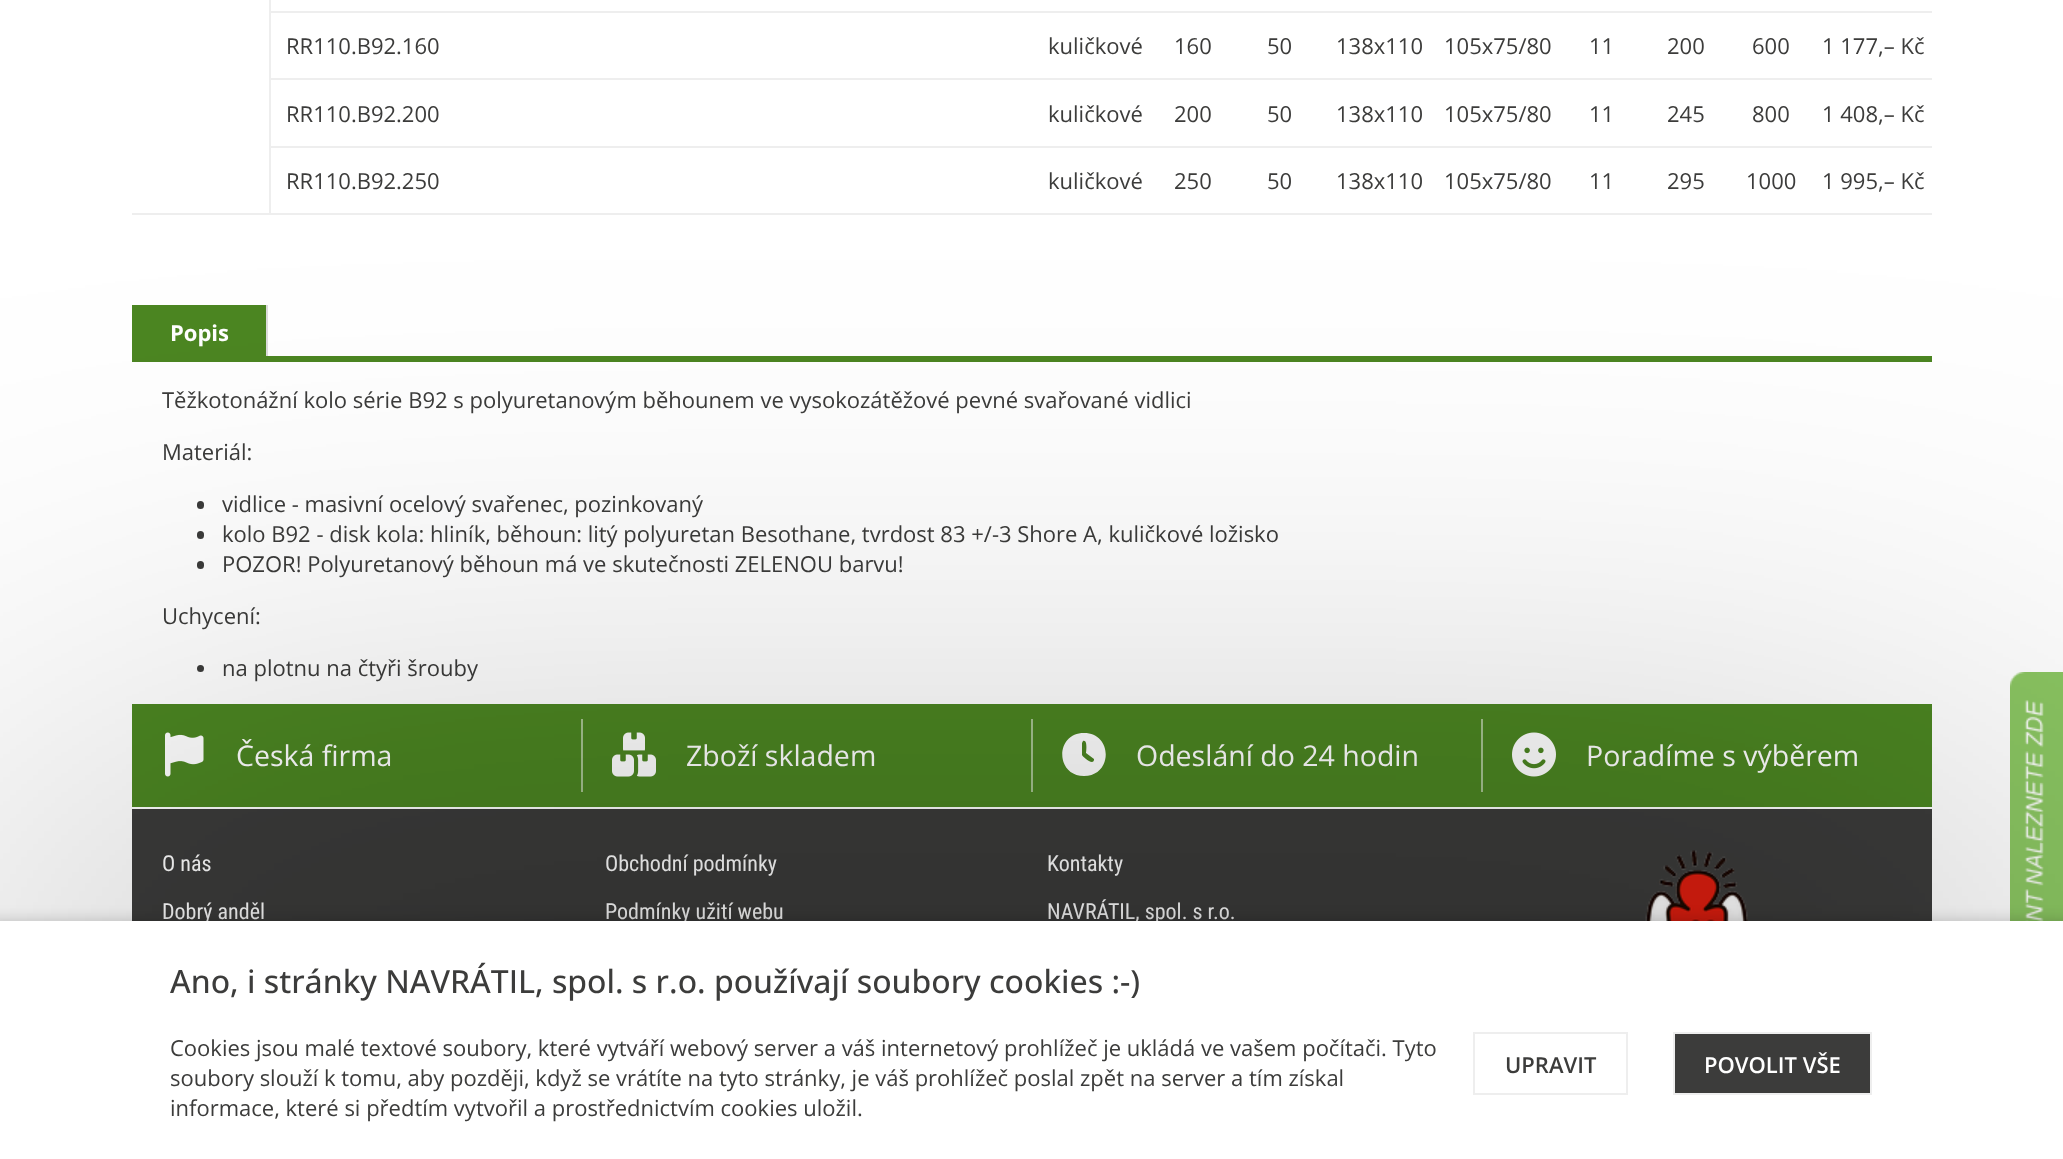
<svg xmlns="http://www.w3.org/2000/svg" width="2063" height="1159">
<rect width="100%" height="100%" fill="#fff"/>
<rect x="269" y="11" width="1663" height="2" fill="#eee"/>
<rect x="269" y="78" width="1663" height="2" fill="#eee"/>
<rect x="269" y="146" width="1663" height="2" fill="#eee"/>
<rect x="269" y="213" width="1663" height="2" fill="#eee"/>
<rect x="269" width="2" height="215" fill="#eee"/>
<rect x="132" y="213" width="138" height="2" fill="#eee"/>
<text x="286" y="54" style="font-family:Open Sans;font-size:22px;fill:#3c3c3b">RR110.B92.160</text>
<text x="1048" y="54" style="font-family:Open Sans;font-size:22px;fill:#3c3c3b">kuličkové</text>
<text x="1174" y="54" style="font-family:Open Sans;font-size:22px;fill:#3c3c3b">160</text>
<text x="1267" y="54" style="font-family:Open Sans;font-size:22px;fill:#3c3c3b">50</text>
<text x="1336" y="54" style="font-family:Open Sans;font-size:22px;fill:#3c3c3b">138x110</text>
<text x="1444" y="54" style="font-family:Open Sans;font-size:22px;fill:#3c3c3b">105x75/80</text>
<text x="1589" y="54" style="font-family:Open Sans;font-size:22px;fill:#3c3c3b">11</text>
<text x="1667" y="54" style="font-family:Open Sans;font-size:22px;fill:#3c3c3b">200</text>
<text x="1752" y="54" style="font-family:Open Sans;font-size:22px;fill:#3c3c3b">600</text>
<text x="1822" y="54" style="font-family:Open Sans;font-size:22px;fill:#3c3c3b">1 177,– Kč</text>
<text x="286" y="122" style="font-family:Open Sans;font-size:22px;fill:#3c3c3b">RR110.B92.200</text>
<text x="1048" y="122" style="font-family:Open Sans;font-size:22px;fill:#3c3c3b">kuličkové</text>
<text x="1174" y="122" style="font-family:Open Sans;font-size:22px;fill:#3c3c3b">200</text>
<text x="1267" y="122" style="font-family:Open Sans;font-size:22px;fill:#3c3c3b">50</text>
<text x="1336" y="122" style="font-family:Open Sans;font-size:22px;fill:#3c3c3b">138x110</text>
<text x="1444" y="122" style="font-family:Open Sans;font-size:22px;fill:#3c3c3b">105x75/80</text>
<text x="1589" y="122" style="font-family:Open Sans;font-size:22px;fill:#3c3c3b">11</text>
<text x="1667" y="122" style="font-family:Open Sans;font-size:22px;fill:#3c3c3b">245</text>
<text x="1752" y="122" style="font-family:Open Sans;font-size:22px;fill:#3c3c3b">800</text>
<text x="1822" y="122" style="font-family:Open Sans;font-size:22px;fill:#3c3c3b">1 408,– Kč</text>
<text x="286" y="189" style="font-family:Open Sans;font-size:22px;fill:#3c3c3b">RR110.B92.250</text>
<text x="1048" y="189" style="font-family:Open Sans;font-size:22px;fill:#3c3c3b">kuličkové</text>
<text x="1174" y="189" style="font-family:Open Sans;font-size:22px;fill:#3c3c3b">250</text>
<text x="1267" y="189" style="font-family:Open Sans;font-size:22px;fill:#3c3c3b">50</text>
<text x="1336" y="189" style="font-family:Open Sans;font-size:22px;fill:#3c3c3b">138x110</text>
<text x="1444" y="189" style="font-family:Open Sans;font-size:22px;fill:#3c3c3b">105x75/80</text>
<text x="1589" y="189" style="font-family:Open Sans;font-size:22px;fill:#3c3c3b">11</text>
<text x="1667" y="189" style="font-family:Open Sans;font-size:22px;fill:#3c3c3b">295</text>
<text x="1746" y="189" style="font-family:Open Sans;font-size:22px;fill:#3c3c3b">1000</text>
<text x="1822" y="189" style="font-family:Open Sans;font-size:22px;fill:#3c3c3b">1 995,– Kč</text>
<rect x="132" y="356" width="1800" height="6" fill="#4c8622"/>
<rect x="132" y="305" width="134" height="51" fill="#4c8622"/>
<rect x="266" y="305" width="2" height="51" fill="#ddd"/>
<text x="170" y="341" style="font-family:Open Sans;font-size:22px;font-weight:bold;fill:#fff">Popis</text>
<text x="162" y="408" style="font-family:Open Sans;font-size:22px;fill:#3c3c3b">Těžkotonážní kolo série B92 s polyuretanovým běhounem ve vysokozátěžové pevné svařované vidlici</text>
<text x="162" y="460" style="font-family:Open Sans;font-size:22px;fill:#3c3c3b">Materiál:</text>
<rect x="197" y="501" width="7" height="8" rx="3.5" fill="#3c3c3b"/>
<text x="222" y="512" style="font-family:Open Sans;font-size:22px;fill:#3c3c3b">vidlice - masivní ocelový svařenec, pozinkovaný</text>
<rect x="197" y="531" width="7" height="8" rx="3.5" fill="#3c3c3b"/>
<text x="222" y="542" style="font-family:Open Sans;font-size:22px;fill:#3c3c3b">kolo B92 - disk kola: hliník, běhoun: litý polyuretan Besothane, tvrdost 83 +/-3 Shore A, kuličkové ložisko</text>
<rect x="197" y="561" width="7" height="8" rx="3.5" fill="#3c3c3b"/>
<text x="222" y="572" style="font-family:Open Sans;font-size:22px;fill:#3c3c3b">POZOR! Polyuretanový běhoun má ve skutečnosti ZELENOU barvu!</text>
<text x="162" y="624" style="font-family:Open Sans;font-size:22px;fill:#3c3c3b">Uchycení:</text>
<circle cx="200.5" cy="668.5" r="3.5" fill="#3c3c3b"/>
<text x="222" y="676" style="font-family:Open Sans;font-size:22px;fill:#3c3c3b">na plotnu na čtyři šrouby</text>
<rect x="132" y="704" width="1800" height="103" fill="#4c8622"/>
<image x="165" y="732" width="39" height="45" href="media/1.png"/>
<text x="236" y="766" style="font-family:Open Sans;font-size:28.5px;fill:#fff">Česká firma</text>
<rect x="581" y="719" width="2" height="73" fill="#a6c391"/>
<image x="612" y="732" width="44" height="45" href="media/2.png"/>
<text x="686" y="766" style="font-family:Open Sans;font-size:28.5px;fill:#fff">Zboží skladem</text>
<rect x="1031" y="719" width="2" height="73" fill="#a6c391"/>
<path d="M1084 733c29 0 29 43 0 43c-29 0-29-43 0-43zm-2 10v12c0 1 11 11 12 5v-1l-8-6c0-1 2-14-3-12z" fill="#fff"/>
<text x="1136" y="766" style="font-family:Open Sans;font-size:28.5px;fill:#fff">Odeslání do 24 hodin</text>
<rect x="1481" y="719" width="2" height="73" fill="#a6c391"/>
<image x="1512" y="732" width="44" height="45" href="media/3.png"/>
<text x="1586" y="766" style="font-family:Open Sans;font-size:28.5px;fill:#fff">Poradíme s výběrem</text>
<image x="2010" y="672" width="53" height="249" href="media/4.png"/>
<rect x="132" y="809" width="1800" height="112" fill="#3c3c3b"/>
<text x="162" y="871" style="font-family:Roboto Condensed;font-size:22px;fill:#fff">O nás</text>
<text x="162" y="919" style="font-family:Roboto Condensed;font-size:22px;fill:#fff">Dobrý anděl</text>
<text x="605" y="871" style="font-family:Roboto Condensed;font-size:22px;fill:#fff">Obchodní podmínky</text>
<text x="605" y="919" style="font-family:Roboto Condensed;font-size:22px;fill:#fff">Podmínky užití webu</text>
<text x="1047" y="871" style="font-family:Roboto Condensed;font-size:22px;fill:#fff">Kontakty</text>
<text x="1047" y="919" style="font-family:Roboto Condensed;font-size:22px;fill:#fff">NAVRÁTIL, spol. s r.o.</text>
<image x="1645" y="850" width="103" height="71" href="media/5.png"/>
<rect x="-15" y="921" width="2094" height="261" fill="#00000033" filter="blur(7.5px)"/>
<rect y="921" width="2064" height="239" fill="#00000080" filter="blur(290px)"/>
<rect y="921" width="2063" height="238" fill="#fff"/>
<text x="170" y="993" style="font-family:Open Sans;font-size:32px;font-weight:500;fill:#3c3c3b">Ano, i stránky NAVRÁTIL, spol. s r.o. používají soubory cookies :-)</text>
<text x="170" y="1056" style="font-family:Open Sans;font-size:22px;fill:#3c3c3b">Cookies jsou malé textové soubory, které vytváří webový server a váš internetový prohlížeč je ukládá ve vašem počítači. Tyto</text>
<text x="170" y="1086" style="font-family:Open Sans;font-size:22px;fill:#3c3c3b">soubory slouží k tomu, aby později, když se vrátíte na tyto stránky, je váš prohlížeč poslal zpět na server a tím získal</text>
<text x="170" y="1116" style="font-family:Open Sans;font-size:22px;fill:#3c3c3b">informace, které si předtím vytvořil a prostřednictvím cookies uložil.</text>
<rect x="1474" y="1033" width="153" height="61" fill="none" stroke="#eee" stroke-width="2"/>
<text x="1505" y="1073" style="font-family:Open Sans;font-size:22px;font-weight:600;fill:#3c3c3b">UPRAVIT</text>
<rect x="1674" y="1033" width="197" height="61" fill="#3c3c3b" stroke="#eee" stroke-width="2"/>
<text x="1704" y="1073" style="font-family:Open Sans;font-size:22px;font-weight:600;fill:#fff">POVOLIT VŠE</text>
</svg>
